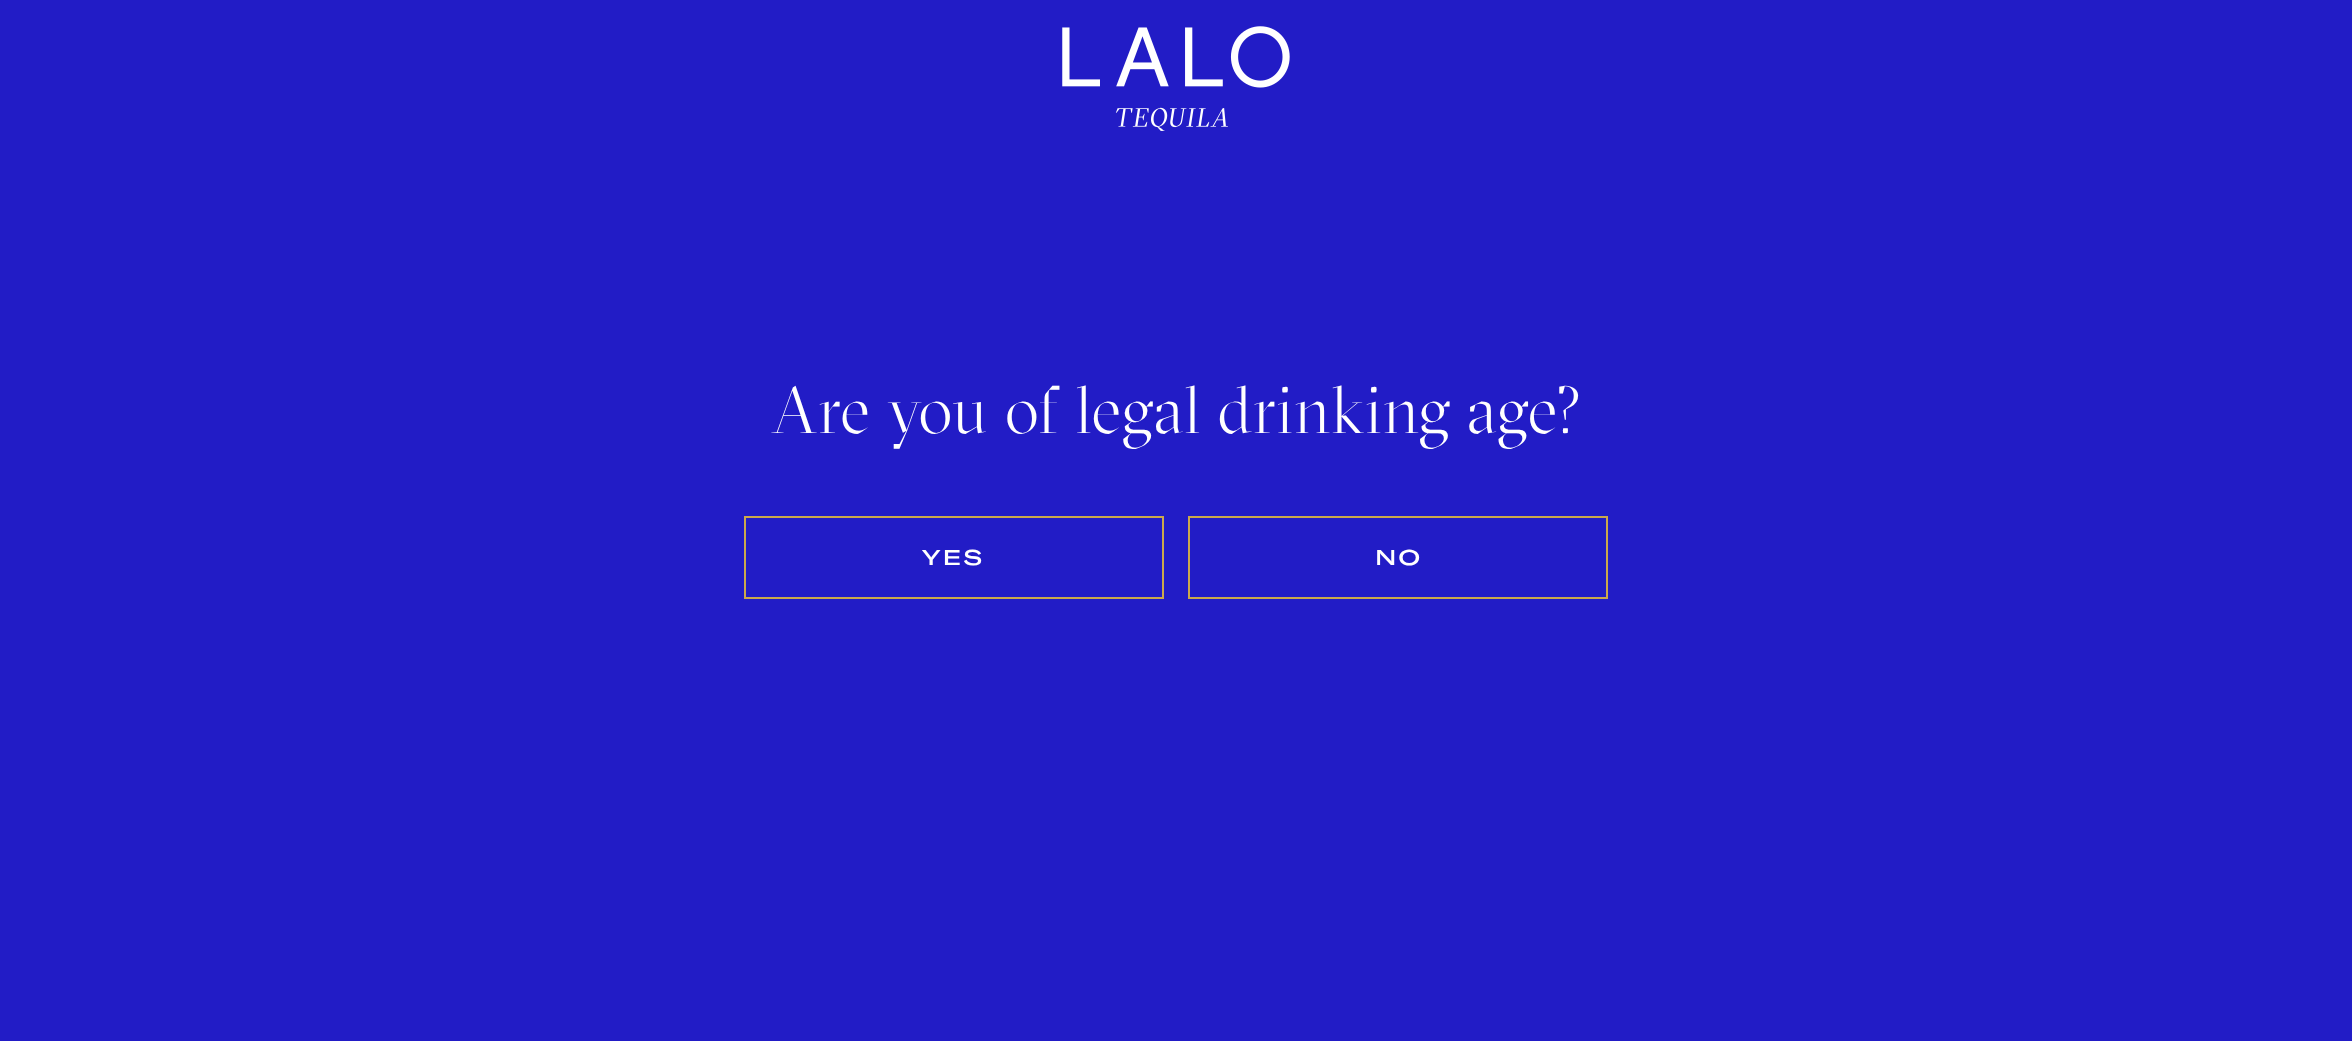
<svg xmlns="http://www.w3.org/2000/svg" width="2352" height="1041">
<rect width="100%" height="100%" fill="#221cc6"/>
<image x="1062" y="26" width="228" height="105" href="media/1.png"/>
<text x="771" y="433" style="font-family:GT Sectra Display;font-size:66.5px;font-weight:300;letter-spacing:0.75px;fill:#fff">Are you of legal drinking age?</text>
<rect x="745" y="517" width="418" height="81" fill="none" stroke="#cca84b" stroke-width="2"/>
<text x="922" y="565" style="font-family:GT America;font-size:21px;font-weight:500;letter-spacing:2.5px;fill:#fff">YES</text>
<rect x="1189" y="517" width="418" height="81" fill="none" stroke="#cca84b" stroke-width="2"/>
<text x="1375" y="565" style="font-family:GT America;font-size:21px;font-weight:500;letter-spacing:2.5px;fill:#fff">NO</text>
</svg>
